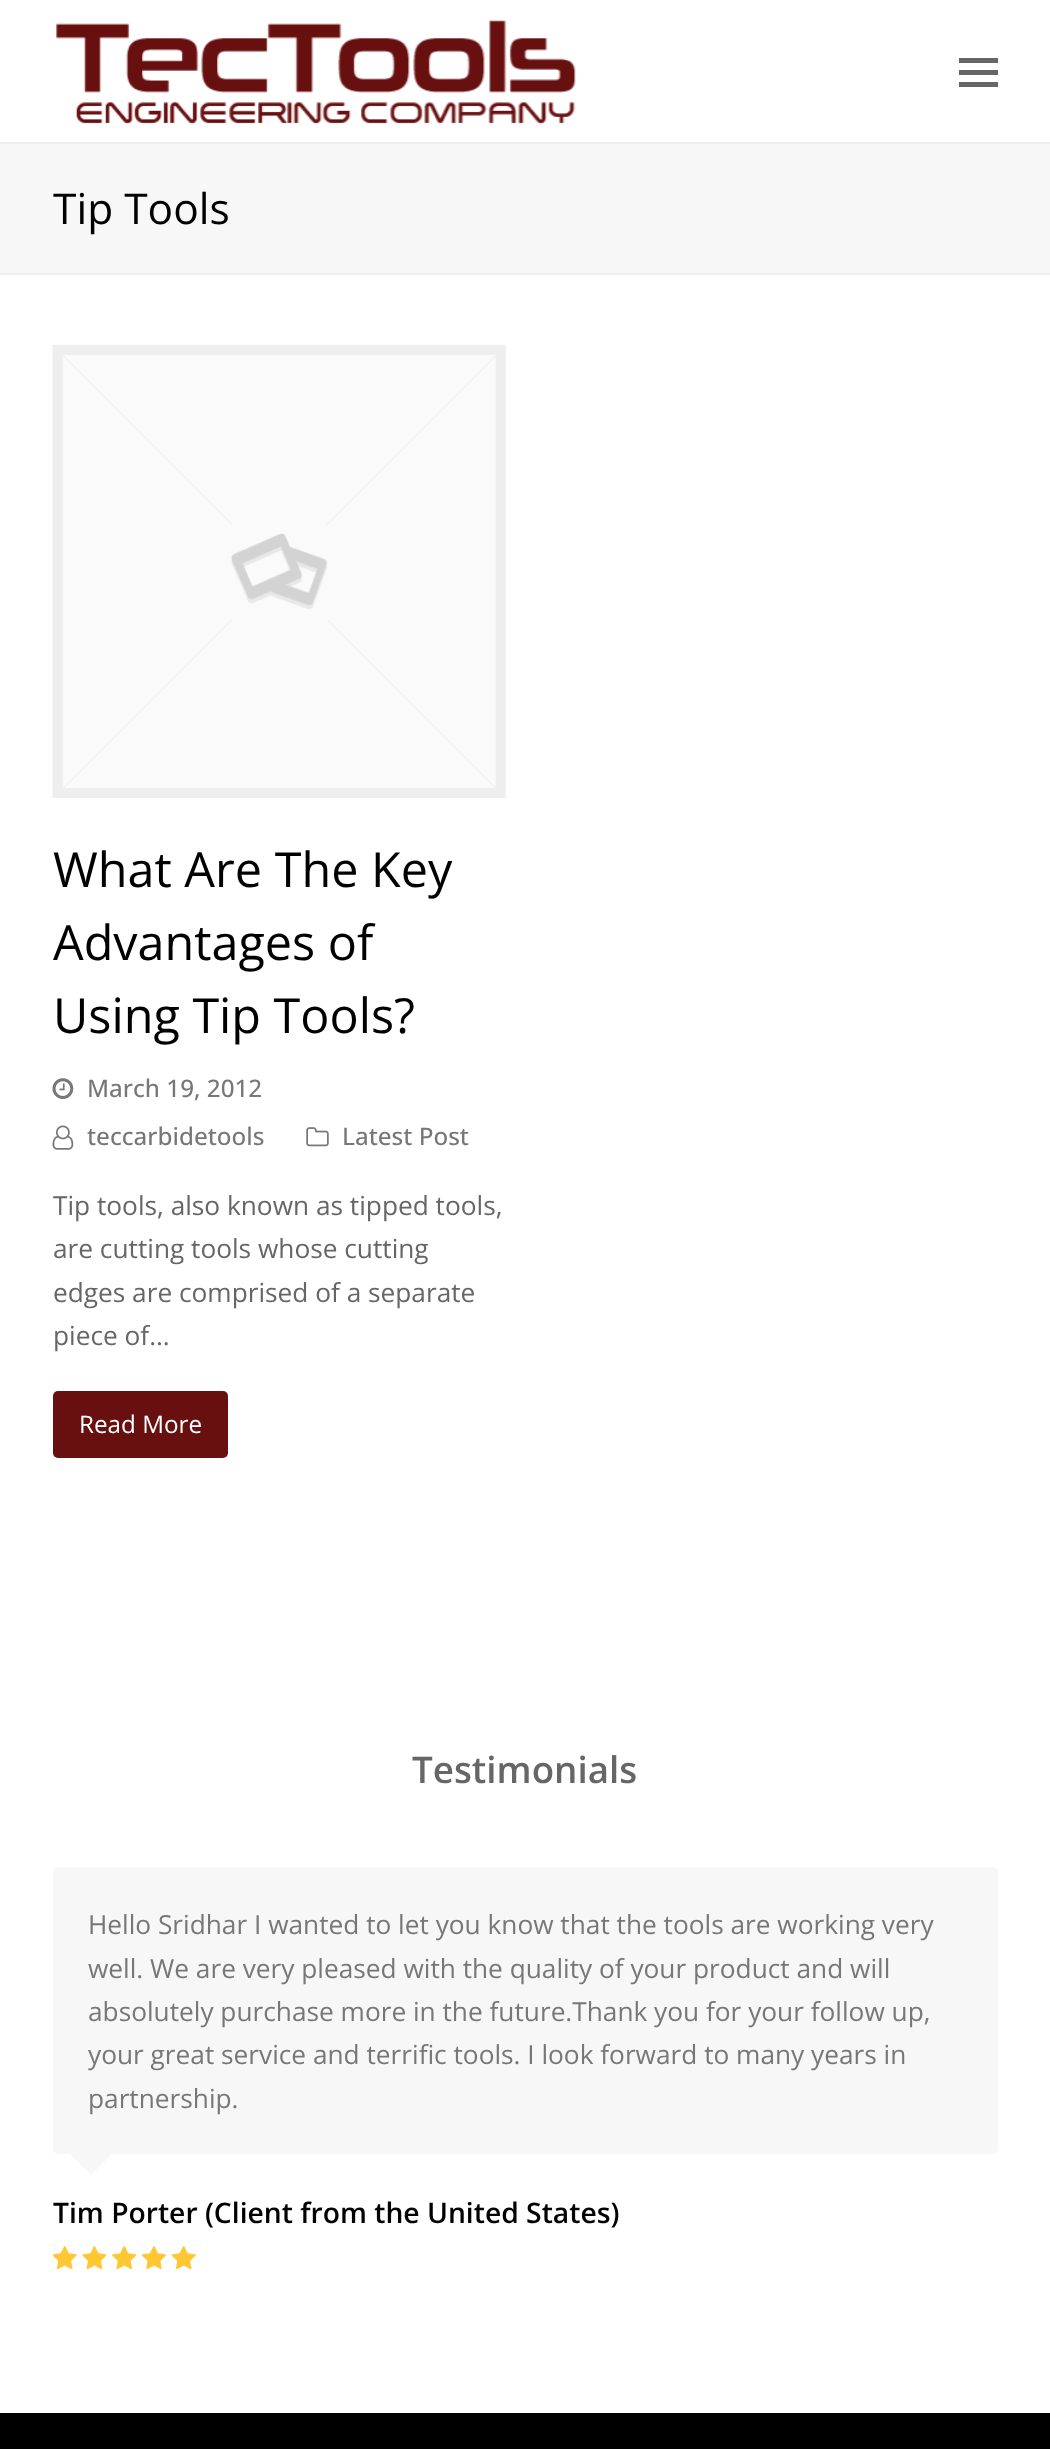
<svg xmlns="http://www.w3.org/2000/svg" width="1050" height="2449">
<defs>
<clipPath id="clip1"><rect x="53" y="1867" width="945" height="413"/></clipPath>
</defs>
<rect width="100%" height="100%" fill="#fff"/>
<image x="56" y="20" width="520" height="104" href="media/1.png"/>
<rect x="959" y="70" width="39" height="5" fill="#666"/>
<rect x="959" y="58" width="39" height="5" fill="#666"/>
<rect x="959" y="82" width="39" height="5" fill="#666"/>
<rect y="144" width="1050" height="129" fill="#f7f7f7"/>
<rect y="142" width="1050" height="2" fill="#eee"/>
<rect y="273" width="1050" height="2" fill="#eee"/>
<text x="53" y="224" style="font-family:Open Sans;font-size:42.5px;fill:#000">Tip Tools</text>
<image x="52" y="344" width="454" height="454" href="media/2.png"/>
<text x="53" y="887" style="font-family:Open Sans;font-size:48.5px;fill:#000">What Are The Key</text>
<text x="53" y="960" style="font-family:Open Sans;font-size:48.5px;fill:#000">Advantages of</text>
<text x="53" y="1033" style="font-family:Open Sans;font-size:48.5px;fill:#000">Using Tip Tools?</text>
<image x="52" y="1078" width="22" height="21" href="media/3.png"/>
<text x="87" y="1097" style="font-family:Open Sans;font-size:24.25px;font-weight:500;fill:#777">March 19, 2012</text>
<image x="52" y="1125" width="22" height="25" href="media/4.png"/>
<text x="87" y="1145" style="font-family:Open Sans;font-size:24.25px;font-weight:500;fill:#777">teccarbidetools</text>
<image x="306" y="1127" width="23" height="20" href="media/5.png"/>
<text x="342" y="1145" style="font-family:Open Sans;font-size:24.25px;font-weight:500;fill:#777">Latest Post</text>
<text x="53" y="1215" style="font-family:Open Sans;font-size:26.25px;fill:#666">Tip tools, also known as tipped tools,</text>
<text x="53" y="1258" style="font-family:Open Sans;font-size:26.25px;fill:#666">are cutting tools whose cutting</text>
<text x="53" y="1302" style="font-family:Open Sans;font-size:26.25px;fill:#666">edges are comprised of a separate</text>
<text x="53" y="1345" style="font-family:Open Sans;font-size:26.25px;fill:#666">piece of…</text>
<rect x="53" y="1391" width="175" height="67" rx="5" fill="#680f10"/>
<text x="79" y="1433" style="font-family:Open Sans;font-size:24.25px;fill:#fff">Read More</text>
<text x="412" y="1783" style="font-family:Open Sans;font-size:36.75px;font-weight:600;fill:#666">Testimonials</text>
<rect x="53" y="1867" width="945" height="287" rx="5" fill="#f7f7f7"/>
<text x="88" y="1934" style="font-family:Open Sans;font-size:26.25px;fill:#777">Hello Sridhar I wanted to let you know that the tools are working very</text>
<text x="88" y="1978" style="font-family:Open Sans;font-size:26.25px;fill:#777">well. We are very pleased with the quality of your product and will</text>
<text x="88" y="2021" style="font-family:Open Sans;font-size:26.25px;fill:#777">absolutely purchase more in the future.Thank you for your follow up,</text>
<text x="88" y="2064" style="font-family:Open Sans;font-size:26.25px;fill:#777">your great service and terrific tools. I look forward to many years in</text>
<text x="88" y="2108" style="font-family:Open Sans;font-size:26.25px;fill:#777">partnership.</text>
<path d="M70 2154h42l-21 21z" fill="#f7f7f7"/>
<g clip-path="url(#clip1)">
<text x="53" y="2223" style="font-family:Open Sans;font-size:28.25px;font-weight:600;fill:#000">Tim Porter (Client from the United States)</text>
</g>
<image x="53" y="2246" width="24" height="24" href="media/6.png"/>
<image x="82" y="2246" width="25" height="24" href="media/7.png"/>
<image x="112" y="2246" width="25" height="24" href="media/8.png"/>
<image x="141" y="2246" width="26" height="24" href="media/9.png"/>
<image x="171" y="2246" width="25" height="24" href="media/10.png"/>
<rect y="2413" width="1050" height="36" fill="#000"/>
</svg>
